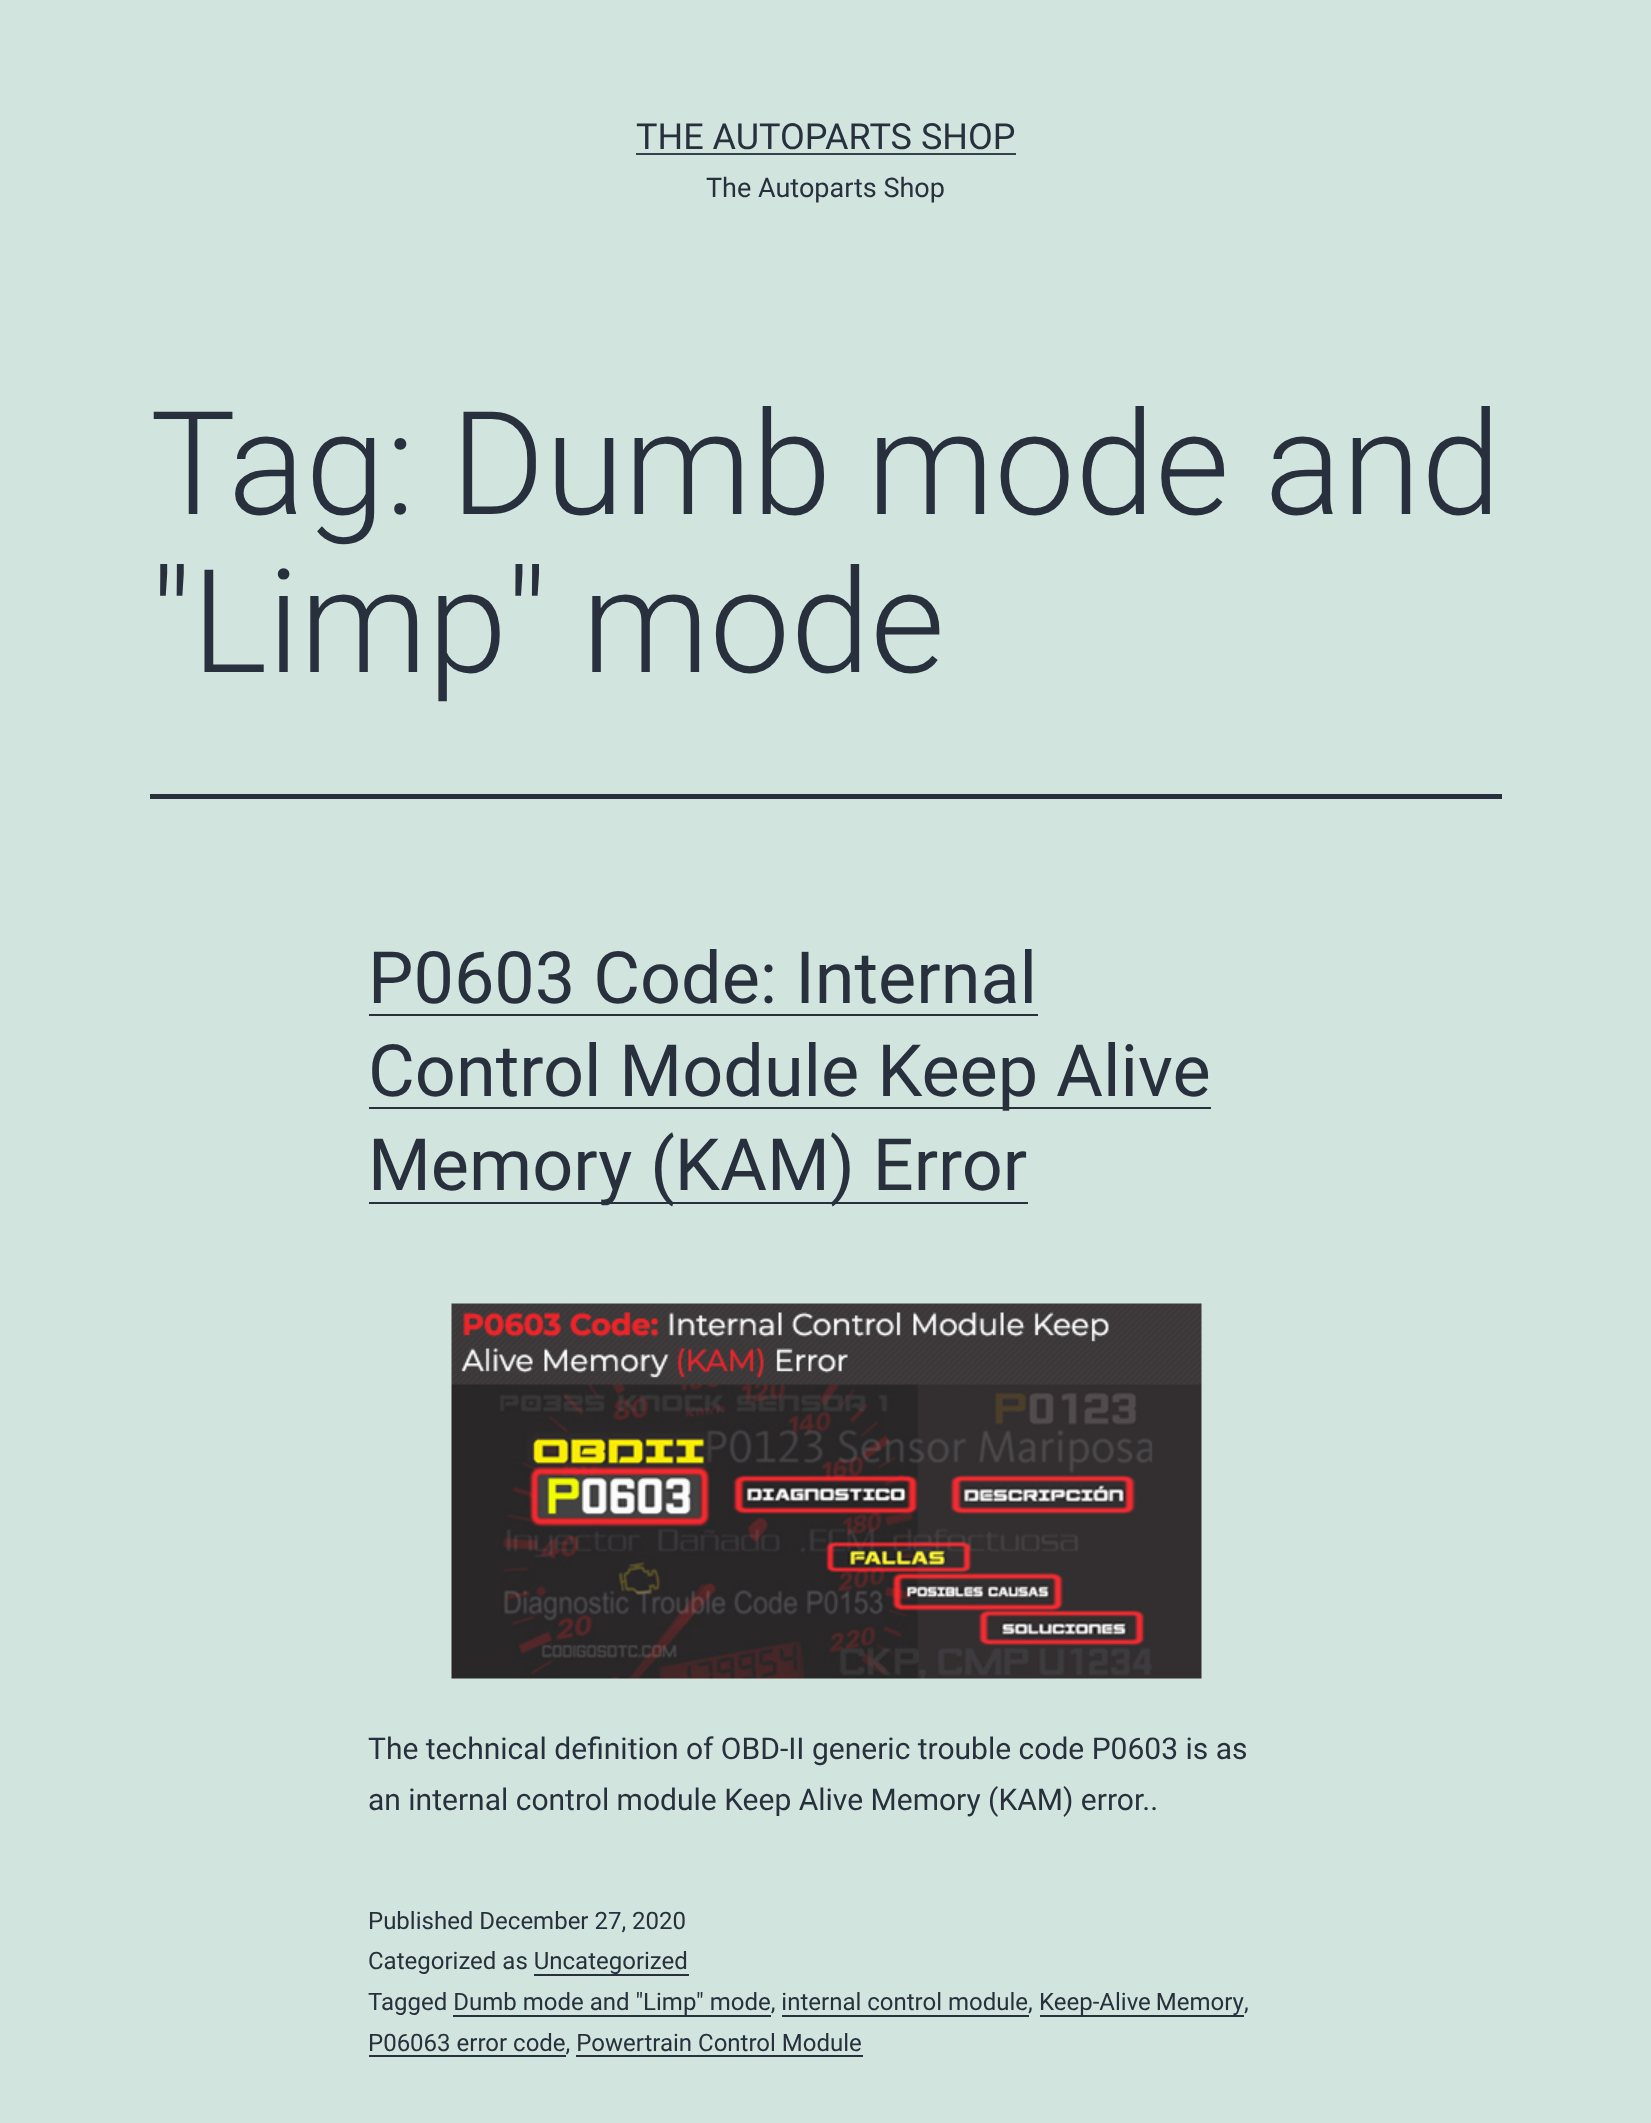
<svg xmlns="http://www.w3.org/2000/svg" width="1651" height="2123">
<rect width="100%" height="100%" fill="#d1e4dd"/>
<text x="636" y="149" style="font-family:Roboto;font-size:36px;fill:#28303d">THE AUTOPARTS SHOP</text>
<rect x="636" y="153" width="380" height="2" fill="#39414d"/>
<text x="706" y="197" style="font-family:Roboto;font-size:27px;fill:#28303d">The Autoparts Shop</text>
<rect x="150" y="794" width="1352" height="5" fill="#28303d"/>
<text x="150" y="514" style="font-family:Roboto;font-size:144px;font-weight:300;fill:#28303d">Tag: Dumb mode and</text>
<text x="150" y="672" style="font-family:Roboto;font-size:144px;font-weight:300;fill:#28303d">"Limp" mode</text>
<text x="368" y="1003" style="font-family:Roboto;font-size:72px;fill:#28303d">P0603 Code: Internal</text>
<rect x="369" y="1014" width="669" height="2" fill="#28303d"/>
<rect x="369" y="1107" width="842" height="2" fill="#28303d"/>
<text x="368" y="1096" style="font-family:Roboto;font-size:72px;fill:#28303d">Control Module Keep Alive</text>
<rect x="369" y="1202" width="659" height="2" fill="#28303d"/>
<text x="368" y="1190" style="font-family:Roboto;font-size:72px;fill:#28303d">Memory (KAM) Error</text>
<image x="451" y="1303" width="751" height="376" href="media/1.png"/>
<text x="368" y="1759" style="font-family:Roboto;font-size:30px;fill:#28303d">The technical definition of OBD-II generic trouble code P0603 is as</text>
<text x="368" y="1810" style="font-family:Roboto;font-size:30px;fill:#28303d">an internal control module Keep Alive Memory (KAM) error..</text>
<text x="368" y="1929" style="font-family:Roboto;font-size:24px;fill:#28303d">Published December 27, 2020</text>
<text x="368" y="1969" style="font-family:Roboto;font-size:24px;fill:#28303d">Categorized as Uncategorized</text>
<rect x="534" y="1974" width="155" height="2" fill="#28303d"/>
<text x="368" y="2010" style="font-family:Roboto;font-size:24px;fill:#28303d">Tagged Dumb mode and "Limp" mode, internal control module,</text>
<rect x="1040" y="2015" width="204" height="2" fill="#28303d"/>
<text x="1039" y="2010" word-spacing="-1" style="font-family:Roboto;font-size:24px;fill:#28303d">Keep-Alive Memory</text>
<text x="1244" y="2010" style="font-family:Roboto;font-size:24px;fill:#28303d">,</text>
<rect x="453" y="2015" width="318" height="2" fill="#28303d"/>
<rect x="782" y="2015" width="247" height="2" fill="#28303d"/>
<text x="368" y="2051" style="font-family:Roboto;font-size:24px;fill:#28303d">P06063 error code, Powertrain Control Module</text>
<rect x="369" y="2055" width="197" height="2" fill="#28303d"/>
<rect x="576" y="2055" width="287" height="2" fill="#28303d"/>
</svg>
